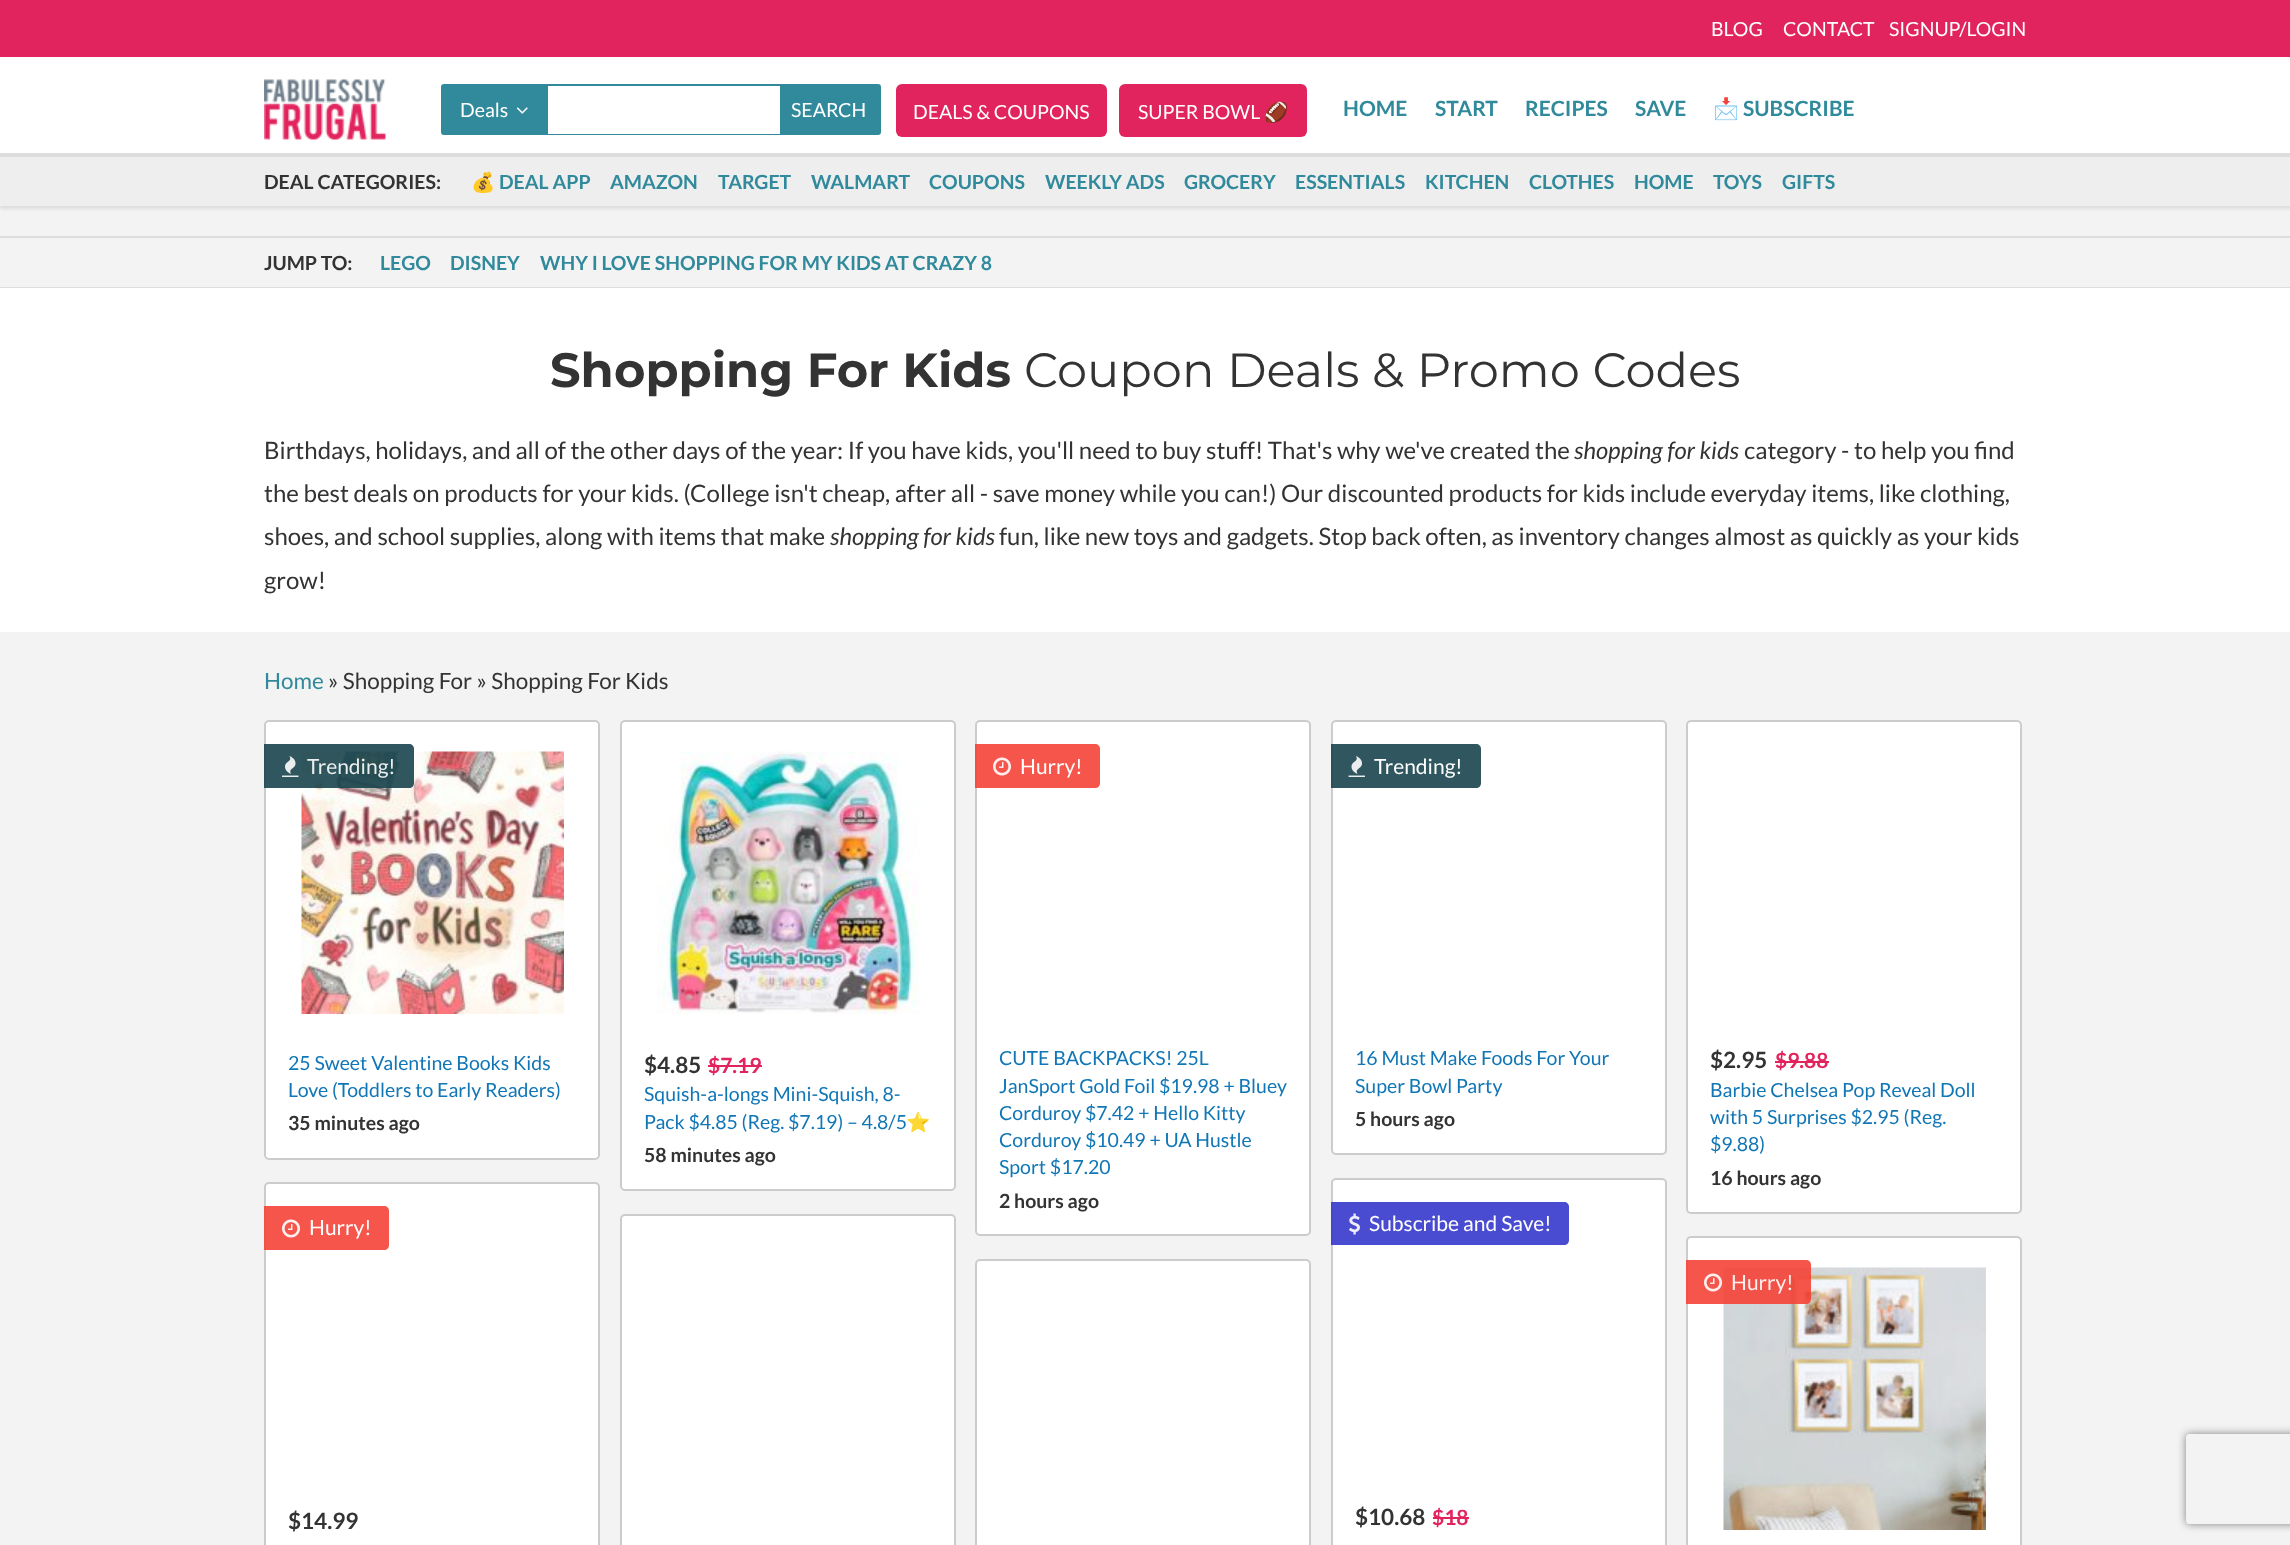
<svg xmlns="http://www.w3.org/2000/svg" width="2290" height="1545">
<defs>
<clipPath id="clip1"><path d="M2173 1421h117v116h-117zm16 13h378c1.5 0 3 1.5 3 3v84c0 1.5-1.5 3-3 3h-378c-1.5 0-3-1.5-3-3v-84c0-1.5 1.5-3 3-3z" clip-rule="evenodd"/></clipPath>
</defs>
<rect width="100%" height="100%" fill="#f3f3f3"/>
<rect width="2290" height="57" fill="#e1245e"/>
<text x="1711" y="36" style="font-family:Lato;font-size:19.5px;fill:#fff">BLOG</text>
<text x="1783" y="36" style="font-family:Lato;font-size:19.5px;fill:#fff">CONTACT</text>
<text x="1889" y="36" style="font-family:Lato;font-size:19.5px;fill:#fff">SIGNUP/LOGIN</text>
<rect y="57" width="2290" height="96" fill="#fff"/>
<rect y="153" width="2290" height="2" fill="#ddd"/>
<image x="264" y="79" width="122" height="61" href="media/1.png"/>
<rect x="442" y="85" width="438" height="49" rx="2" fill="none" stroke="#318a9c" stroke-width="2"/>
<rect x="443" y="86" width="105" height="47" fill="#318a9c"/>
<text x="460" y="117" style="font-family:Lato;font-size:19.5px;fill:#fff">Deals</text>
<image x="516" y="107" width="12" height="7" href="media/2.png"/>
<rect x="780" y="86" width="99" height="47" fill="#318a9c"/>
<text x="791" y="117" style="font-family:Lato;font-size:19.5px;fill:#fff">SEARCH</text>
<rect x="548" y="133" width="232" height="1" fill="#fff"/>
<rect x="896" y="84" width="211" height="53" rx="6" fill="#e1245e"/>
<text x="913" y="119" style="font-family:Lato;font-size:19.5px;fill:#fff">DEALS &amp; COUPONS</text>
<rect x="1119" y="84" width="188" height="53" rx="6" fill="#e1245e"/>
<text x="1138" y="119" style="font-family:Lato;font-size:19.5px;fill:#fff">SUPER BOWL</text>
<text x="1264" y="119" style="font-family:Noto Color Emoji;font-size:19.5px;fill:#fff">🏈</text>
<text x="1343" y="116" style="font-family:Lato;font-size:21px;font-weight:bold;fill:#318a9c">HOME</text>
<text x="1435" y="116" style="font-family:Lato;font-size:21px;font-weight:bold;fill:#318a9c">START</text>
<text x="1525" y="116" style="font-family:Lato;font-size:21px;font-weight:bold;fill:#318a9c">RECIPES</text>
<text x="1635" y="116" style="font-family:Lato;font-size:21px;font-weight:bold;fill:#318a9c">SAVE</text>
<text x="1713" y="116" style="font-family:Noto Color Emoji;font-size:21px;font-weight:bold;fill:#318a9c">📩</text>
<text x="1743" y="116" style="font-family:Lato;font-size:21px;font-weight:bold;fill:#318a9c">SUBSCRIBE</text>
<rect y="158" width="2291" height="51" fill="#ddd" filter="blur(1.5px)"/>
<rect y="157" width="2290" height="49" fill="#eee"/>
<rect y="155" width="2290" height="2" fill="#ddd"/>
<text x="264" y="189" style="font-family:Lato;font-size:19.5px;font-weight:bold;fill:#333">DEAL CATEGORIES:</text>
<text x="471" y="189" style="font-family:Noto Color Emoji;font-size:19.5px;font-weight:bold;fill:#318a9c">💰</text>
<text x="499" y="189" style="font-family:Lato;font-size:19.5px;font-weight:bold;fill:#318a9c">DEAL APP</text>
<text x="610" y="189" style="font-family:Lato;font-size:19.5px;font-weight:bold;fill:#318a9c">AMAZON</text>
<text x="718" y="189" style="font-family:Lato;font-size:19.5px;font-weight:bold;fill:#318a9c">TARGET</text>
<text x="811" y="189" style="font-family:Lato;font-size:19.5px;font-weight:bold;fill:#318a9c">WALMART</text>
<text x="929" y="189" style="font-family:Lato;font-size:19.5px;font-weight:bold;fill:#318a9c">COUPONS</text>
<text x="1045" y="189" style="font-family:Lato;font-size:19.5px;font-weight:bold;fill:#318a9c">WEEKLY ADS</text>
<text x="1184" y="189" style="font-family:Lato;font-size:19.5px;font-weight:bold;fill:#318a9c">GROCERY</text>
<text x="1295" y="189" style="font-family:Lato;font-size:19.5px;font-weight:bold;fill:#318a9c">ESSENTIALS</text>
<text x="1425" y="189" style="font-family:Lato;font-size:19.5px;font-weight:bold;fill:#318a9c">KITCHEN</text>
<text x="1529" y="189" style="font-family:Lato;font-size:19.5px;font-weight:bold;fill:#318a9c">CLOTHES</text>
<text x="1634" y="189" style="font-family:Lato;font-size:19.5px;font-weight:bold;fill:#318a9c">HOME</text>
<text x="1713" y="189" style="font-family:Lato;font-size:19.5px;font-weight:bold;fill:#318a9c">TOYS</text>
<text x="1782" y="189" style="font-family:Lato;font-size:19.5px;font-weight:bold;fill:#318a9c">GIFTS</text>
<rect y="236" width="2290" height="2" fill="#ddd"/>
<rect y="287" width="2290" height="1" fill="#ddd"/>
<text x="264" y="270" style="font-family:Lato;font-size:19.5px;font-weight:bold;fill:#333">JUMP TO:</text>
<text x="380" y="270" style="font-family:Lato;font-size:19.5px;font-weight:bold;fill:#318a9c">LEGO</text>
<text x="450" y="270" style="font-family:Lato;font-size:19.5px;font-weight:bold;fill:#318a9c">DISNEY</text>
<text x="540" y="270" style="font-family:Lato;font-size:19.5px;font-weight:bold;fill:#318a9c">WHY I LOVE SHOPPING FOR MY KIDS AT CRAZY 8</text>
<rect y="288" width="2290" height="344" fill="#fff"/>
<text x="550" y="387" style="font-family:Montserrat;font-size:48px;font-weight:bold;fill:#333">Shopping For Kids</text>
<text x="1024" y="387" style="font-family:Montserrat;font-size:48px;fill:#333">Coupon Deals &amp; Promo Codes</text>
<text x="264" y="459" style="font-family:Lato;font-size:24px;fill:#333">Birthdays, holidays, and all of the other days of the year: If you have kids, you'll need to buy stuff! That's why we've created the</text>
<text x="1574" y="459" style="font-family:Lato;font-size:24px;font-style:italic;fill:#333">shopping for kids</text>
<text x="1744" y="459" style="font-family:Lato;font-size:24px;fill:#333">category - to help you find</text>
<text x="264" y="502" style="font-family:Lato;font-size:24px;fill:#333">the best deals on products for your kids. (College isn't cheap, after all - save money while you can!) Our discounted products for kids include everyday items, like clothing,</text>
<text x="264" y="545" style="font-family:Lato;font-size:24px;fill:#333">shoes, and school supplies, along with items that make</text>
<text x="830" y="545" style="font-family:Lato;font-size:24px;font-style:italic;fill:#333">shopping for kids</text>
<text x="999" y="545" style="font-family:Lato;font-size:24px;fill:#333">fun, like new toys and gadgets. Stop back often, as inventory changes almost as quickly as your kids</text>
<text x="264" y="589" style="font-family:Lato;font-size:24px;fill:#333">grow!</text>
<text x="264" y="689" style="font-family:Lato;font-size:22.5px;fill:#318a9c">Home</text>
<text x="328" y="689" style="font-family:Lato;font-size:22.5px;fill:#333">» Shopping For » Shopping For Kids</text>
<rect x="265" y="721" width="334" height="438" rx="4" fill="#fff" stroke="#ccc" stroke-width="2"/>
<image x="301" y="751" width="263" height="263" href="media/3.png"/>
<path d="M264 744h145c3 0 5 2 5 5v34c0 3-2 5-5 5h-145z" fill="#19454ee6"/>
<image x="282" y="756" width="17" height="21" href="media/4.png"/>
<text x="307" y="774" style="font-family:Lato;font-size:21px;fill:#eaeeee">Trending!</text>
<text x="288" y="1070" style="font-family:Lato;font-size:19.5px;fill:#1076b6">25 Sweet Valentine Books Kids</text>
<text x="288" y="1097" style="font-family:Lato;font-size:19.5px;fill:#1076b6">Love (Toddlers to Early Readers)</text>
<text x="288" y="1130" style="font-family:Lato;font-size:19.5px;font-weight:bold;fill:#333">35 minutes ago</text>
<rect x="621" y="721" width="334" height="469" rx="4" fill="#fff" stroke="#ccc" stroke-width="2"/>
<image x="657" y="751" width="263" height="263" href="media/5.png"/>
<text x="644" y="1073" style="font-family:Lato;font-size:22.5px;font-weight:bold;fill:#333">$4.85</text>
<text x="708" y="1073" style="font-family:Lato;font-size:21px;font-weight:bold;fill:#e1245e">$7.19</text>
<rect x="708" y="1065" width="54" height="2" fill="#e1245e"/>
<text x="644" y="1101" style="font-family:Lato;font-size:19.5px;fill:#1076b6">Squish-a-longs Mini-Squish, 8-</text>
<text x="644" y="1129" style="font-family:Lato;font-size:19.5px;fill:#1076b6">Pack $4.85 (Reg. $7.19) – 4.8/5</text>
<text x="906" y="1129" style="font-family:Noto Color Emoji;font-size:19.5px;fill:#1076b6">⭐</text>
<text x="644" y="1162" style="font-family:Lato;font-size:19.5px;font-weight:bold;fill:#333">58 minutes ago</text>
<rect x="976" y="721" width="334" height="514" rx="4" fill="#fff" stroke="#ccc" stroke-width="2"/>
<path d="M975 744h120c3 0 5 2 5 5v34c0 3-2 5-5 5h-120z" fill="#f44336e6"/>
<image x="993" y="757" width="18" height="19" href="media/6.png"/>
<text x="1020" y="774" style="font-family:Lato;font-size:21px;fill:#fff">Hurry!</text>
<text x="999" y="1065" style="font-family:Lato;font-size:19.5px;fill:#1076b6">CUTE BACKPACKS! 25L</text>
<text x="999" y="1093" style="font-family:Lato;font-size:19.5px;fill:#1076b6">JanSport Gold Foil $19.98 + Bluey</text>
<text x="999" y="1120" style="font-family:Lato;font-size:19.5px;fill:#1076b6">Corduroy $7.42 + Hello Kitty</text>
<text x="999" y="1147" style="font-family:Lato;font-size:19.5px;fill:#1076b6">Corduroy $10.49 + UA Hustle</text>
<text x="999" y="1174" style="font-family:Lato;font-size:19.5px;fill:#1076b6">Sport $17.20</text>
<text x="999" y="1208" style="font-family:Lato;font-size:19.5px;font-weight:bold;fill:#333">2 hours ago</text>
<rect x="1332" y="721" width="334" height="433" rx="4" fill="#fff" stroke="#ccc" stroke-width="2"/>
<path d="M1331 744h145c3 0 5 2 5 5v34c0 3-2 5-5 5h-145z" fill="#19454ee6"/>
<image x="1348" y="756" width="17" height="21" href="media/7.png"/>
<text x="1374" y="774" style="font-family:Lato;font-size:21px;fill:#fff">Trending!</text>
<text x="1355" y="1065" style="font-family:Lato;font-size:19.5px;fill:#1076b6">16 Must Make Foods For Your</text>
<text x="1355" y="1093" style="font-family:Lato;font-size:19.5px;fill:#1076b6">Super Bowl Party</text>
<text x="1355" y="1126" style="font-family:Lato;font-size:19.5px;font-weight:bold;fill:#333">5 hours ago</text>
<rect x="1687" y="721" width="334" height="492" rx="4" fill="#fff" stroke="#ccc" stroke-width="2"/>
<text x="1710" y="1068" style="font-family:Lato;font-size:22.5px;font-weight:bold;fill:#333">$2.95</text>
<text x="1775" y="1068" style="font-family:Lato;font-size:21px;font-weight:bold;fill:#e1245e">$9.88</text>
<rect x="1775" y="1061" width="54" height="2" fill="#e1245e"/>
<text x="1710" y="1097" style="font-family:Lato;font-size:19.5px;fill:#1076b6">Barbie Chelsea Pop Reveal Doll</text>
<text x="1710" y="1124" style="font-family:Lato;font-size:19.5px;fill:#1076b6">with 5 Surprises $2.95 (Reg.</text>
<text x="1710" y="1151" style="font-family:Lato;font-size:19.5px;fill:#1076b6">$9.88)</text>
<text x="1710" y="1185" style="font-family:Lato;font-size:19.5px;font-weight:bold;fill:#333">16 hours ago</text>
<rect x="265" y="1183" width="334" height="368" rx="4" fill="#fff" stroke="#ccc" stroke-width="2"/>
<path d="M264 1206h120c3 0 5 2 5 5v34c0 3-2 5-5 5h-120z" fill="#f44336e6"/>
<image x="282" y="1219" width="18" height="19" href="media/6.png"/>
<text x="309" y="1235" style="font-family:Lato;font-size:21px;fill:#fff">Hurry!</text>
<text x="288" y="1529" style="font-family:Lato;font-size:22.5px;font-weight:bold;fill:#333">$14.99</text>
<rect x="621" y="1215" width="334" height="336" rx="4" fill="#fff" stroke="#ccc" stroke-width="2"/>
<rect x="976" y="1260" width="334" height="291" rx="4" fill="#fff" stroke="#ccc" stroke-width="2"/>
<rect x="1332" y="1179" width="334" height="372" rx="4" fill="#fff" stroke="#ccc" stroke-width="2"/>
<path d="M1331 1202h233c3 0 5 2 5 5v33c0 3-2 5-5 5h-233z" fill="#3539cce6"/>
<image x="1349" y="1213" width="11" height="22" href="media/8.png"/>
<text x="1369" y="1231" style="font-family:Lato;font-size:21px;fill:#fff">Subscribe and Save!</text>
<text x="1355" y="1525" style="font-family:Lato;font-size:22.5px;font-weight:bold;fill:#333">$10.68</text>
<text x="1432" y="1525" style="font-family:Lato;font-size:21px;font-weight:bold;fill:#e1245e">$18</text>
<rect x="1433" y="1517" width="36" height="2" fill="#e1245e"/>
<rect x="1687" y="1237" width="334" height="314" rx="4" fill="#fff" stroke="#ccc" stroke-width="2"/>
<image x="1723" y="1267" width="263" height="263" href="media/9.png"/>
<path d="M1686 1260h120c3 0 5 2 5 5v34c0 3-2 5-5 5h-120z" fill="#f44336e6"/>
<image x="1704" y="1273" width="18" height="19" href="media/6.png"/>
<text x="1731" y="1290" style="font-family:Lato;font-size:21px;fill:#feeeed">Hurry!</text>
<g clip-path="url(#clip1)">
<rect x="2186" y="1434" width="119" height="90" rx="3" fill="#808080" filter="blur(4px)"/>
</g>
</svg>
